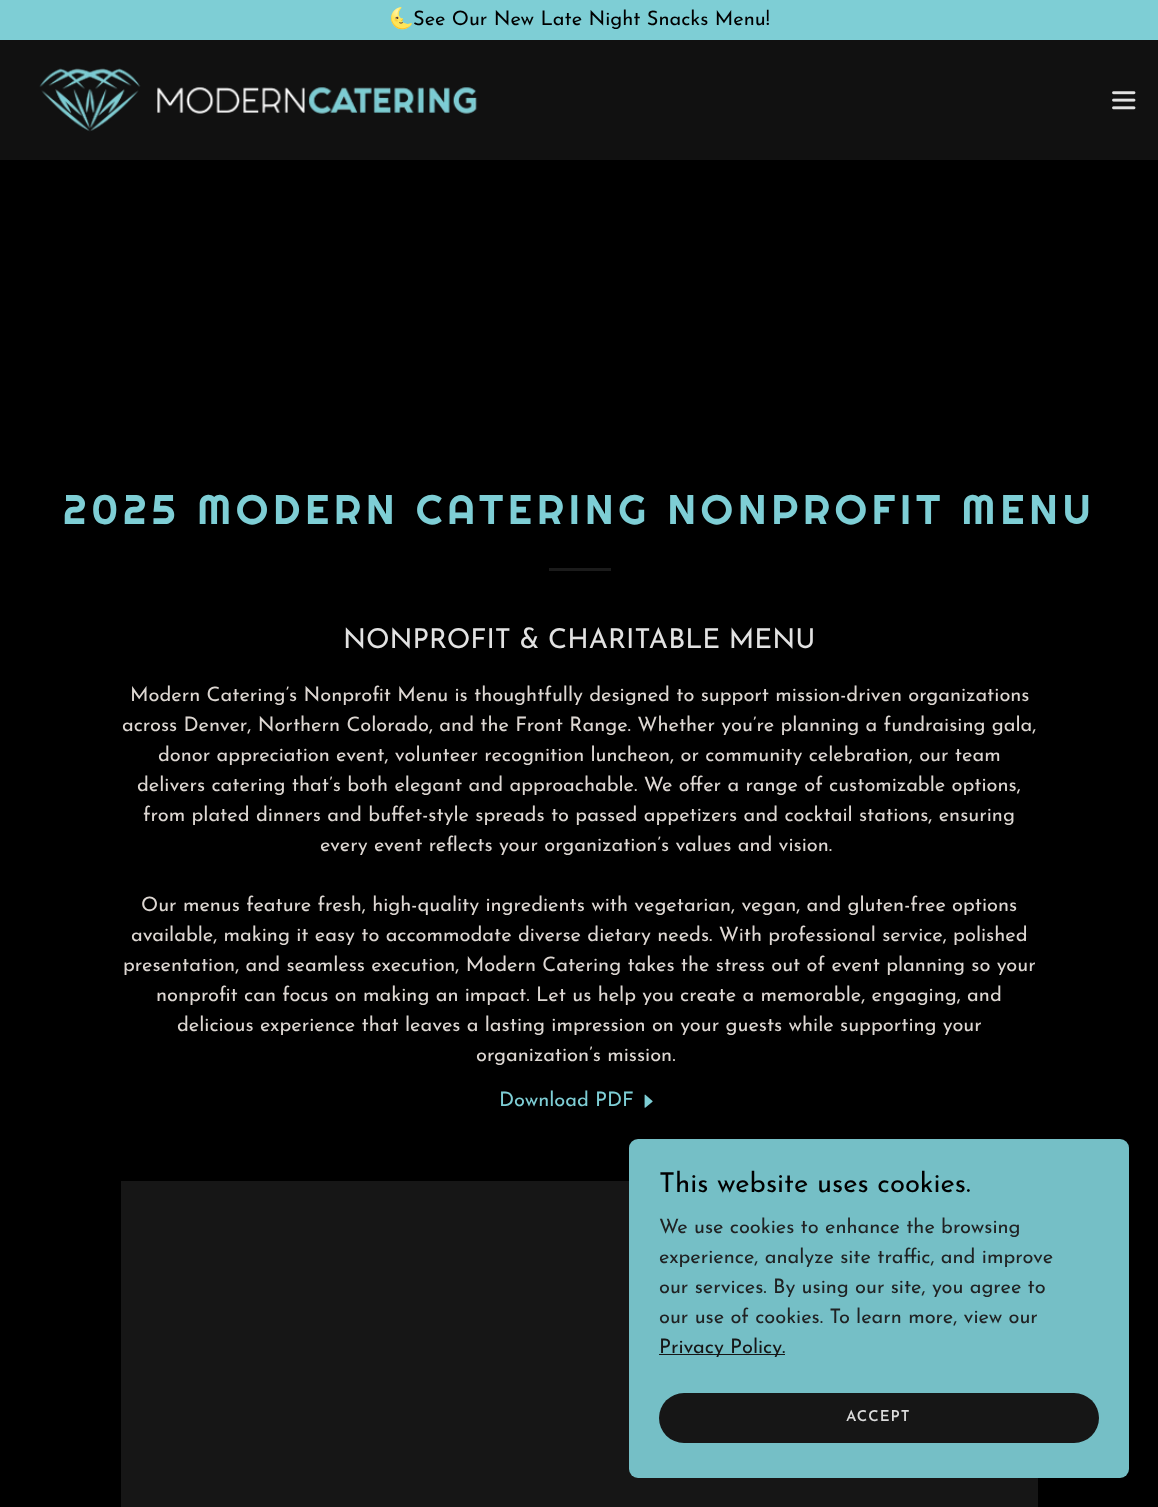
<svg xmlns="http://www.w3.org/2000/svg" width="1158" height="1507">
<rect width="100%" height="100%" fill="#000"/>
<rect width="1158" height="40" fill="#7eced5"/>
<text x="389" y="25" style="font-family:Noto Color Emoji;font-size:20px;fill:#000">🌜</text>
<text x="413" y="25" style="font-family:Josefin Sans;font-size:20px;fill:#000">See Our New Late Night Snacks Menu!</text>
<rect y="40" width="1158" height="120" fill="#111"/>
<image x="39" y="68" width="439" height="64" href="media/1.png"/>
<image x="1112" y="91" width="24" height="19" href="media/2.png"/>
<text x="63" y="524" style="font-family:Righteous;font-size:41.25px;letter-spacing:5px;fill:#7eced5">2025 MODERN CATERING NONPROFIT MENU</text>
<rect x="549" y="568" width="62" height="3" fill="#1b1b1b"/>
<text x="343" y="648" style="font-family:Josefin Sans;font-size:27.5px;fill:#e2e2e2">NONPROFIT &amp; CHARITABLE MENU</text>
<text x="130" y="701" style="font-family:Josefin Sans;font-size:20px;fill:#ddd7d2">Modern Catering’s Nonprofit Menu is thoughtfully designed to support mission-driven organizations</text>
<text x="122" y="731" style="font-family:Josefin Sans;font-size:20px;fill:#ddd7d2">across Denver, Northern Colorado, and the Front Range. Whether you’re planning a fundraising gala,</text>
<text x="158" y="761" style="font-family:Josefin Sans;font-size:20px;fill:#ddd7d2">donor appreciation event, volunteer recognition luncheon, or community celebration, our team</text>
<text x="137" y="791" style="font-family:Josefin Sans;font-size:20px;fill:#ddd7d2">delivers catering that’s both elegant and approachable. We offer a range of customizable options,</text>
<text x="143" y="821" style="font-family:Josefin Sans;font-size:20px;fill:#ddd7d2">from plated dinners and buffet-style spreads to passed appetizers and cocktail stations, ensuring</text>
<text x="320" y="851" style="font-family:Josefin Sans;font-size:20px;fill:#ddd7d2">every event reflects your organization’s values and vision.</text>
<text x="141" y="911" style="font-family:Josefin Sans;font-size:20px;fill:#ddd7d2">Our menus feature fresh, high-quality ingredients with vegetarian, vegan, and gluten-free options</text>
<text x="131" y="941" style="font-family:Josefin Sans;font-size:20px;fill:#ddd7d2">available, making it easy to accommodate diverse dietary needs. With professional service, polished</text>
<text x="123" y="971" style="font-family:Josefin Sans;font-size:20px;fill:#ddd7d2">presentation, and seamless execution, Modern Catering takes the stress out of event planning so your</text>
<text x="156" y="1001" style="font-family:Josefin Sans;font-size:20px;fill:#ddd7d2">nonprofit can focus on making an impact. Let us help you create a memorable, engaging, and</text>
<text x="177" y="1031" style="font-family:Josefin Sans;font-size:20px;fill:#ddd7d2">delicious experience that leaves a lasting impression on your guests while supporting your</text>
<text x="476" y="1061" style="font-family:Josefin Sans;font-size:20px;fill:#ddd7d2">organization’s mission.</text>
<text x="499" y="1106" style="font-family:Josefin Sans;font-size:20px;fill:#7eced5">Download PDF</text>
<image x="644" y="1094" width="9" height="14" href="media/3.png"/>
<rect x="121" y="1181" width="917" height="326" fill="#161616"/>
<rect x="629" y="1139" width="500" height="339" rx="9" fill="#75bfc6"/>
<text x="659" y="1192" style="font-family:Josefin Sans;font-size:27.5px;fill:#000">This website uses cookies.</text>
<text x="659" y="1233" style="font-family:Josefin Sans;font-size:20px;fill:#202223">We use cookies to enhance the browsing</text>
<text x="659" y="1263" style="font-family:Josefin Sans;font-size:20px;fill:#202223">experience, analyze site traffic, and improve</text>
<text x="659" y="1293" style="font-family:Josefin Sans;font-size:20px;fill:#202223">our services. By using our site, you agree to</text>
<text x="659" y="1323" style="font-family:Josefin Sans;font-size:20px;fill:#202223">our use of cookies. To learn more, view our</text>
<rect x="659" y="1354" width="126" height="1" fill="#161616"/>
<text x="659" y="1353" style="font-family:Josefin Sans;font-size:20px;fill:#161616">Privacy Policy.</text>
<rect x="659" y="1393" width="440" height="50" rx="25" fill="#161616"/>
<text x="846" y="1421" style="font-family:Josefin Sans;font-size:15px;font-weight:600;letter-spacing:1px;fill:#dbdbdb">ACCEPT</text>
</svg>
